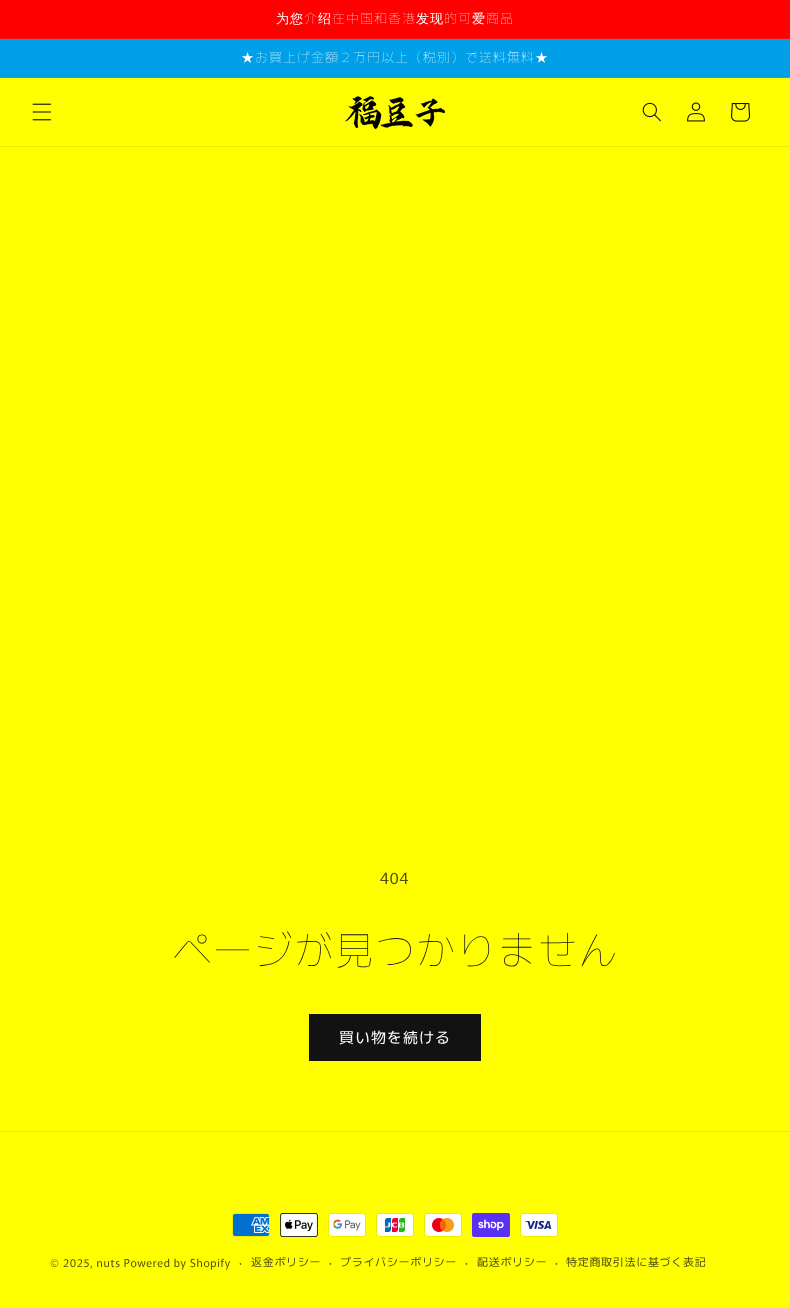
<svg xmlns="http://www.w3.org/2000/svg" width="790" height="1308">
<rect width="100%" height="100%" fill="#ff0"/>
<rect width="790" height="38" fill="#f00"/>
<rect y="38" width="790" height="1" fill="#ff1414"/>
<text x="276" y="23" style="font-family:WenQuanYi Zen Hei;font-size:13px;font-weight:500;letter-spacing:1px;fill:#fff">为您</text>
<text x="304" y="23" style="font-family:Murecho;font-size:13px;font-weight:100;letter-spacing:1px;fill:#fff">介</text>
<text x="318" y="23" style="font-family:WenQuanYi Zen Hei;font-size:13px;font-weight:500;letter-spacing:1px;fill:#fff">绍</text>
<text x="332" y="23" style="font-family:Murecho;font-size:13px;font-weight:100;letter-spacing:1px;fill:#fff">在中国和香港</text>
<text x="416" y="23" style="font-family:WenQuanYi Zen Hei;font-size:13px;font-weight:500;letter-spacing:1px;fill:#fff">发现</text>
<text x="444" y="23" style="font-family:Murecho;font-size:13px;font-weight:100;letter-spacing:1px;fill:#fff">的可</text>
<text x="472" y="23" style="font-family:WenQuanYi Zen Hei;font-size:13px;font-weight:500;letter-spacing:1px;fill:#fff">爱</text>
<text x="486" y="23" style="font-family:Murecho;font-size:13px;font-weight:100;letter-spacing:1px;fill:#fff">商品</text>
<rect y="39" width="790" height="38" fill="#00a0e9"/>
<rect y="77" width="790" height="1" fill="#14a8eb"/>
<text x="241" y="62" style="font-family:WenQuanYi Zen Hei;font-size:13px;font-weight:500;letter-spacing:1px;fill:#fff">★</text>
<text x="255" y="62" style="font-family:Murecho;font-size:13px;font-weight:100;letter-spacing:1px;fill:#fff">お買上げ金額２万円以上（税別）で送料無料</text>
<text x="535" y="62" style="font-family:WenQuanYi Zen Hei;font-size:13px;font-weight:500;letter-spacing:1px;fill:#fff">★</text>
<rect y="146" width="790" height="1" fill="#ecec01"/>
<image x="32" y="103" width="20" height="18" href="media/1.png"/>
<image x="345" y="96" width="100" height="33" href="media/2.png"/>
<image x="642" y="102" width="19" height="20" href="media/3.png"/>
<image x="687" y="102" width="18" height="20" href="media/4.png"/>
<image x="731" y="103" width="20" height="19" href="media/5.png"/>
<text x="380" y="884" style="font-family:Murecho;font-size:16px;letter-spacing:0.6px;fill:#4d4d0e">404</text>
<text x="172" y="965" style="font-family:Murecho;font-size:40px;font-weight:100;letter-spacing:0.6px;fill:#121212">ページが見つかりません</text>
<rect x="309" y="1014" width="172" height="47" fill="#121212"/>
<text x="339" y="1043" style="font-family:Murecho;font-size:15px;letter-spacing:1px;fill:#fff">買い物を続ける</text>
<rect y="1131" width="790" height="1" fill="#ecec01"/>
<image x="232" y="1213" width="38" height="24" href="media/6.png"/>
<image x="280" y="1213" width="38" height="24" href="media/7.png"/>
<image x="328" y="1213" width="38" height="24" href="media/8.png"/>
<image x="376" y="1213" width="38" height="24" href="media/9.png"/>
<image x="424" y="1213" width="38" height="24" href="media/10.png"/>
<image x="472" y="1213" width="38" height="24" href="media/11.png"/>
<image x="520" y="1213" width="38" height="24" href="media/12.png"/>
<text x="50" y="1267" style="font-family:Murecho;font-size:11px;letter-spacing:0.7px;fill:#4d4d0e">© 2025, nuts Powered by Shopify</text>
<text x="239" y="1267" style="font-family:Murecho;font-size:12px;letter-spacing:0.7px;fill:#4d4d0e">·</text>
<text x="251" y="1266" style="font-family:Murecho;font-size:11px;letter-spacing:0.7px;fill:#4d4d0e">返金ポリシー</text>
<text x="329" y="1267" style="font-family:Murecho;font-size:12px;letter-spacing:0.7px;fill:#4d4d0e">·</text>
<text x="340" y="1266" style="font-family:Murecho;font-size:11px;letter-spacing:0.7px;fill:#4d4d0e">プライバシーポリシー</text>
<text x="465" y="1267" style="font-family:Murecho;font-size:12px;letter-spacing:0.7px;fill:#4d4d0e">·</text>
<text x="477" y="1266" style="font-family:Murecho;font-size:11px;letter-spacing:0.7px;fill:#4d4d0e">配送ポリシー</text>
<text x="555" y="1267" style="font-family:Murecho;font-size:12px;letter-spacing:0.7px;fill:#4d4d0e">·</text>
<text x="566" y="1266" style="font-family:Murecho;font-size:11px;letter-spacing:0.7px;fill:#4d4d0e">特定商取引法に基づく表記</text>
</svg>
